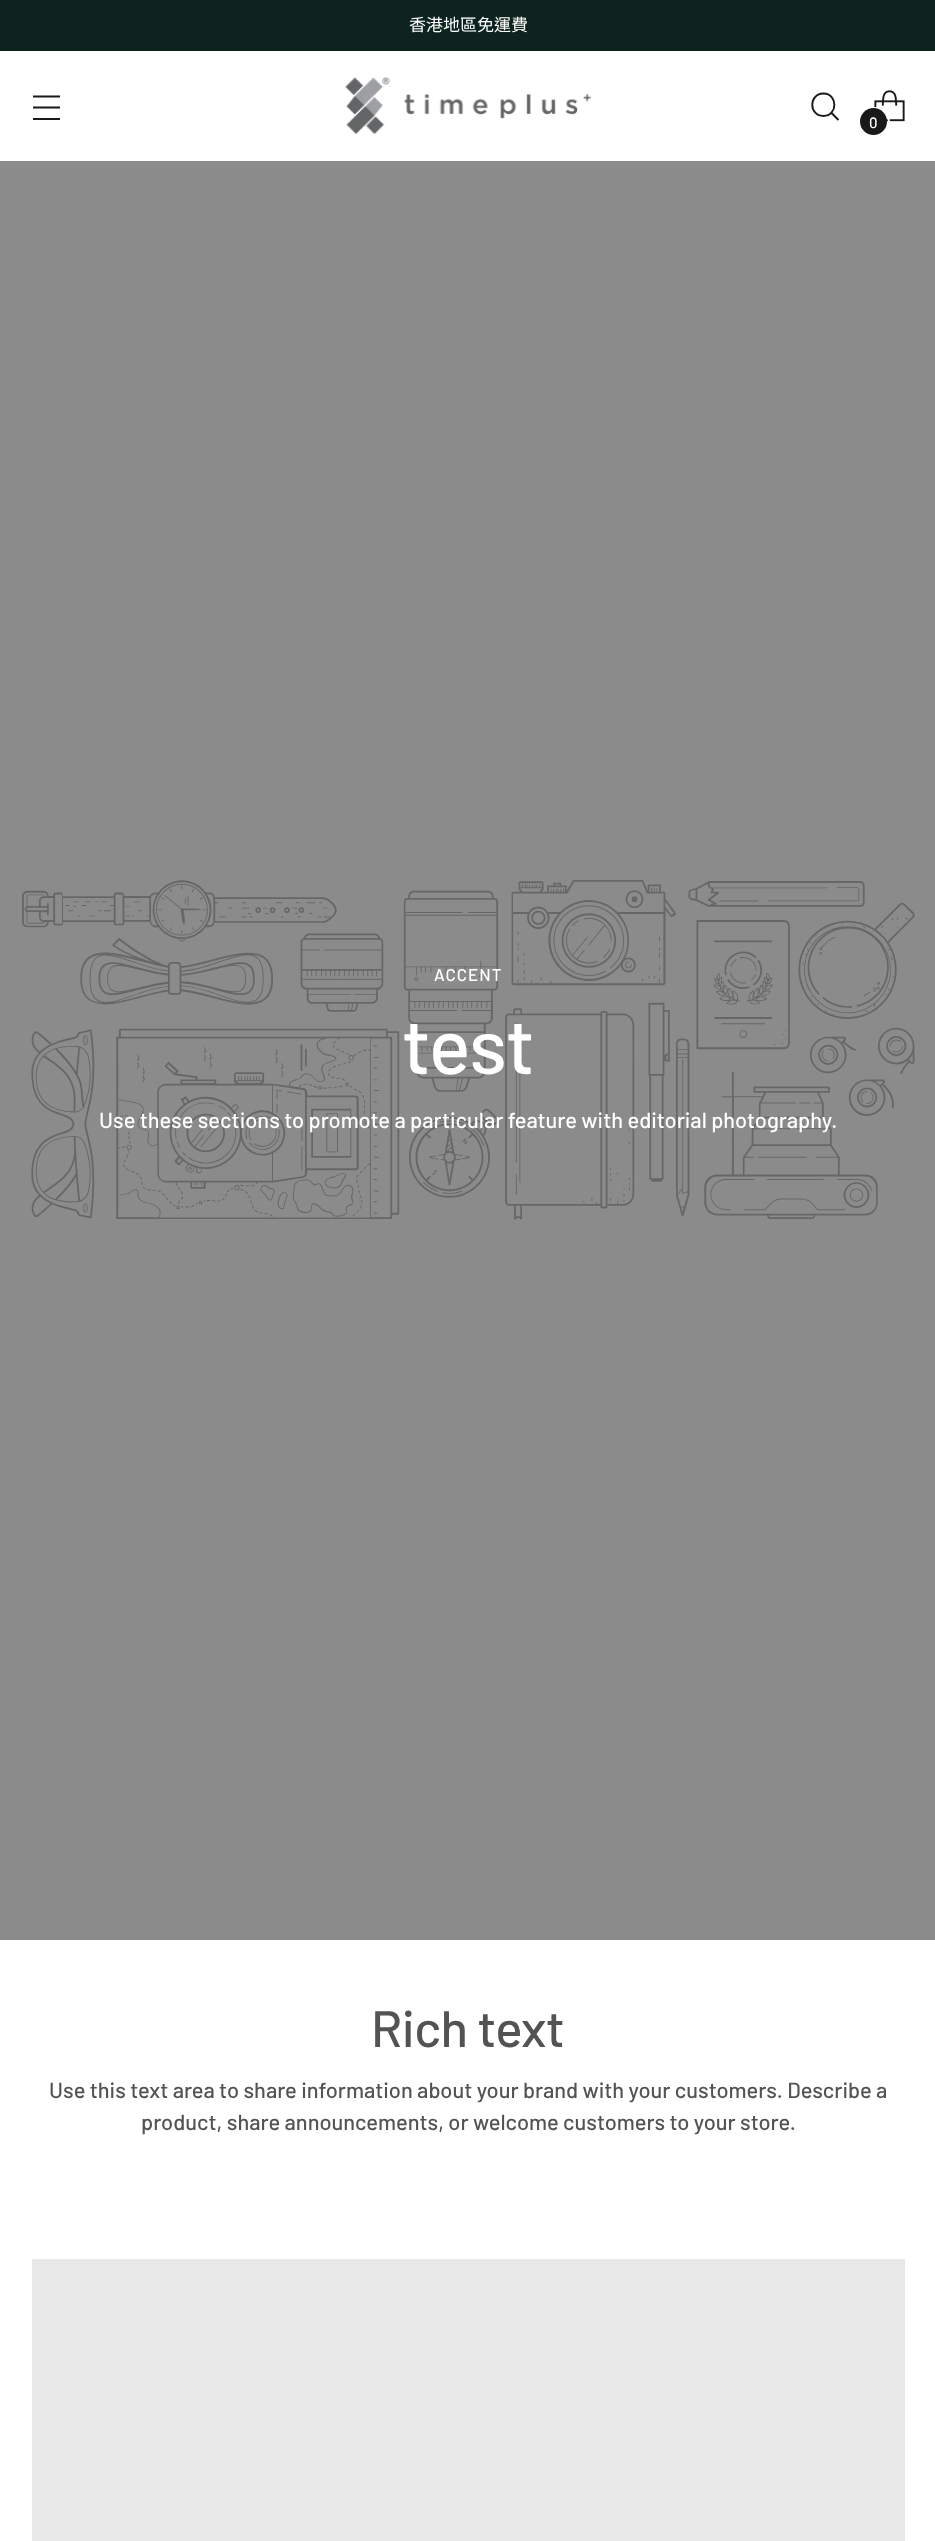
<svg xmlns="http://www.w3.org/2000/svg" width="935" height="2541">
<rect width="100%" height="100%" fill="#fff"/>
<rect width="935" height="51" fill="#0c231e"/>
<text x="409" y="31" style="font-family:Noto Sans CJK TC;font-size:17px;fill:#fff">香港地區免運費</text>
<path d="M33 107.5h27m-27-11h27m-27 22.5h27" fill="none" stroke="#191919" stroke-width="1.9"/>
<image x="345" y="77" width="247" height="58" href="media/1.png"/>
<path d="M823.5 116c14.5 0 14.5-22.5 0-22.5c-15 0-15 22.5 0 22.5z" fill="none" stroke="#191919" stroke-width="1.9" stroke-linecap="round"/>
<path d="M831.5 113l7 7" fill="none" stroke="#191919" stroke-width="1.9"/>
<image x="874" y="90" width="31" height="32" href="media/2.png"/>
<rect x="859" y="108" width="30" height="29" rx="14.5" fill="none" stroke="#fff" stroke-width="2"/>
<circle cx="873.5" cy="121.5" r="13.5" fill="#191919"/>
<text x="869" y="128" style="font-family:Barlow;font-size:15px;font-weight:500;fill:#fff">0</text>
<rect y="161" width="935" height="1779" fill="#8b8b8b"/>
<image x="22" y="880" width="893" height="340" href="media/3.png"/>
<text x="434" y="981" style="font-family:Barlow;font-size:17px;font-weight:500;letter-spacing:1px;fill:#fff">ACCENT</text>
<text x="402" y="1074" style="font-family:Barlow;font-size:78px;font-weight:500;letter-spacing:-1px;fill:#fff">test</text>
<text x="99" y="1128" style="font-family:Barlow;font-size:21.85px;font-weight:500;fill:#fff">Use these sections to promote a particular feature with editorial photography.</text>
<text x="371" y="2047" style="font-family:Barlow;font-size:51px;font-weight:500;letter-spacing:-0.5px;fill:#535353">Rich text</text>
<text x="49" y="2098" style="font-family:Barlow;font-size:21.85px;font-weight:500;fill:#535353">Use this text area to share information about your brand with your customers. Describe a</text>
<text x="141" y="2130" style="font-family:Barlow;font-size:21.85px;font-weight:500;fill:#535353">product, share announcements, or welcome customers to your store.</text>
<rect x="32" y="2259" width="873" height="282" fill="#e8e8e8"/>
</svg>
